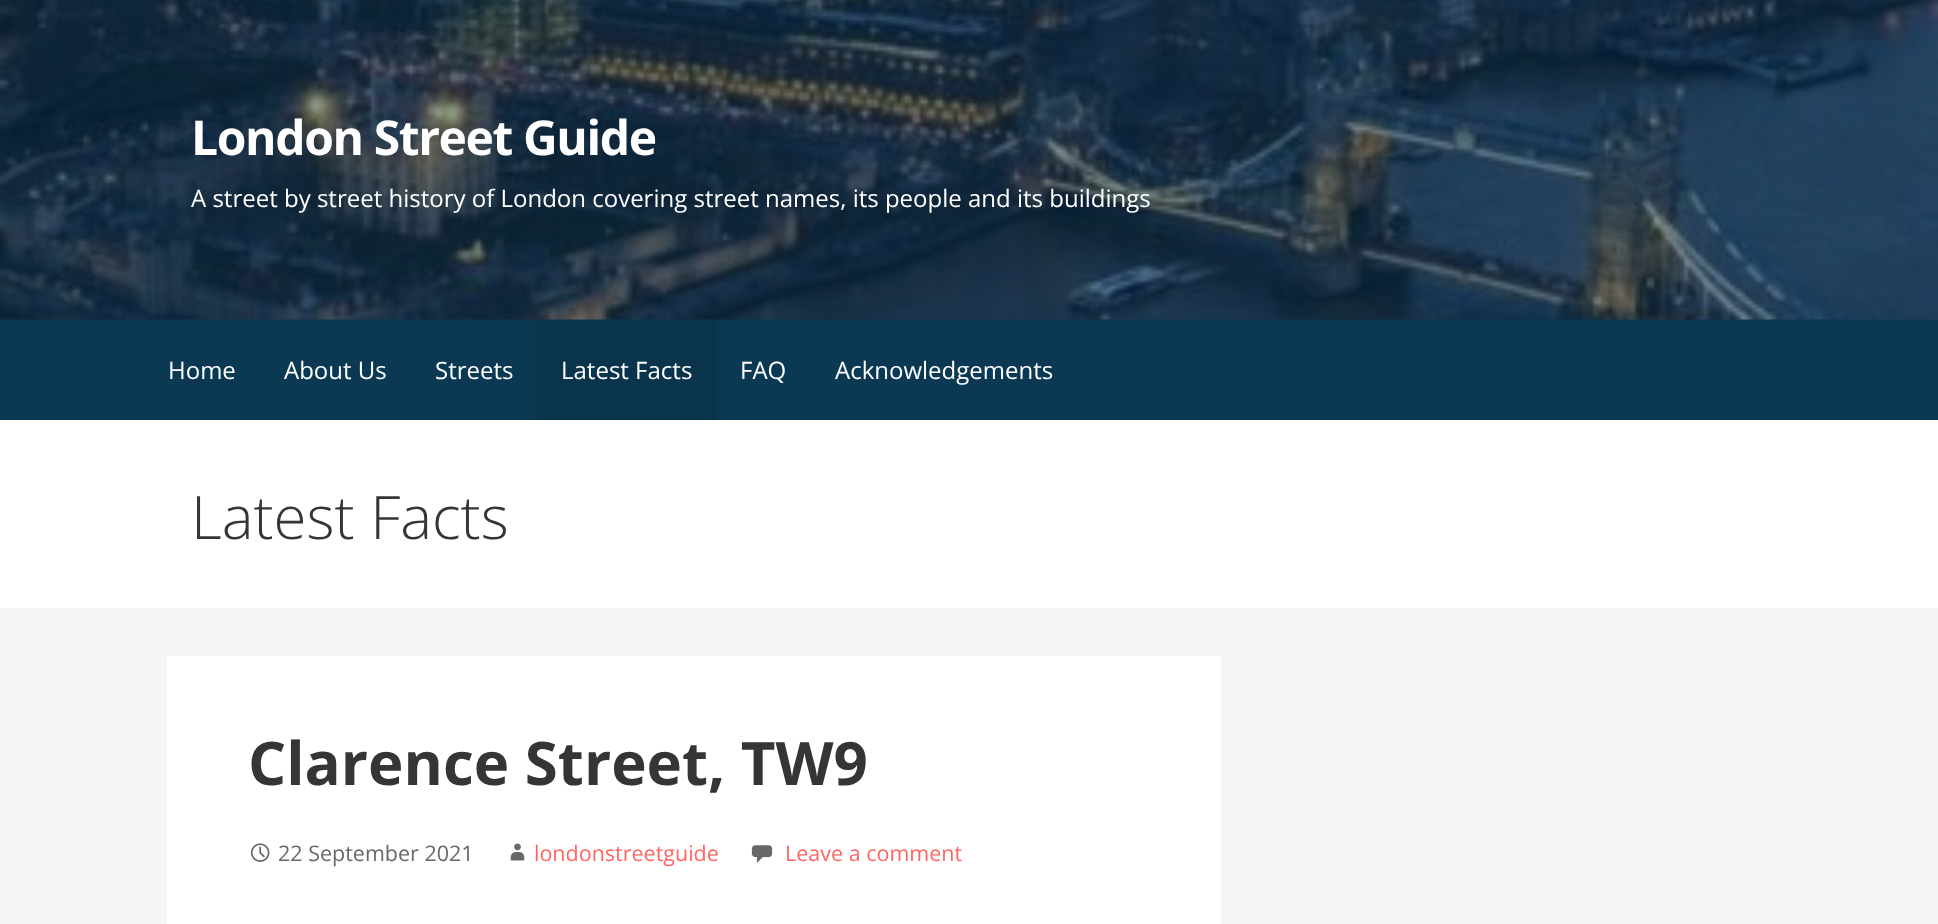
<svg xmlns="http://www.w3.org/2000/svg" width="1938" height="924">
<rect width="100%" height="100%" fill="#f5f5f5"/>
<rect y="319" width="1938" height="101" fill="#0b3954"/>
<image x="0" y="0" width="1938" height="320" href="media/1.png"/>
<text x="191" y="155" style="font-family:Open Sans;font-size:48px;font-weight:bold;letter-spacing:-1.4px;fill:#fff">London Street Guide</text>
<text x="191" y="207" style="font-family:Open Sans;font-size:24px;fill:#fff">A street by street history of London covering street names, its people and its buildings</text>
<text x="168" y="379" style="font-family:Open Sans;font-size:24px;fill:#fff">Home</text>
<text x="284" y="379" style="font-family:Open Sans;font-size:24px;fill:#fff">About Us</text>
<text x="435" y="379" style="font-family:Open Sans;font-size:24px;fill:#fff">Streets</text>
<rect x="537" y="320" width="180" height="100" fill="#0a334c"/>
<text x="561" y="379" style="font-family:Open Sans;font-size:24px;fill:#fff">Latest Facts</text>
<text x="740" y="379" style="font-family:Open Sans;font-size:24px;fill:#fff">FAQ</text>
<text x="835" y="379" style="font-family:Open Sans;font-size:24px;fill:#fff">Acknowledgements</text>
<rect y="420" width="1938" height="188" fill="#fff"/>
<text x="191" y="539" style="font-family:Open Sans;font-size:60px;font-weight:300;fill:#353535">Latest Facts</text>
<rect x="167" y="656" width="1054" height="268" fill="#fff"/>
<text x="248" y="785" style="font-family:Open Sans;font-size:60px;font-weight:bold;fill:#353535">Clarence Street, TW9</text>
<image x="250" y="843" width="20" height="19" href="media/2.png"/>
<text x="278" y="861" style="font-family:Open Sans;font-size:21.5px;fill:#686868">22 September 2021</text>
<image x="510" y="843" width="15" height="18" href="media/3.png"/>
<text x="534" y="861" style="font-family:Open Sans;font-size:21.5px;fill:#ff6663">londonstreetguide</text>
<image x="751" y="845" width="22" height="18" href="media/4.png"/>
<text x="785" y="861" style="font-family:Open Sans;font-size:21.5px;fill:#ff6663">Leave a comment</text>
</svg>
